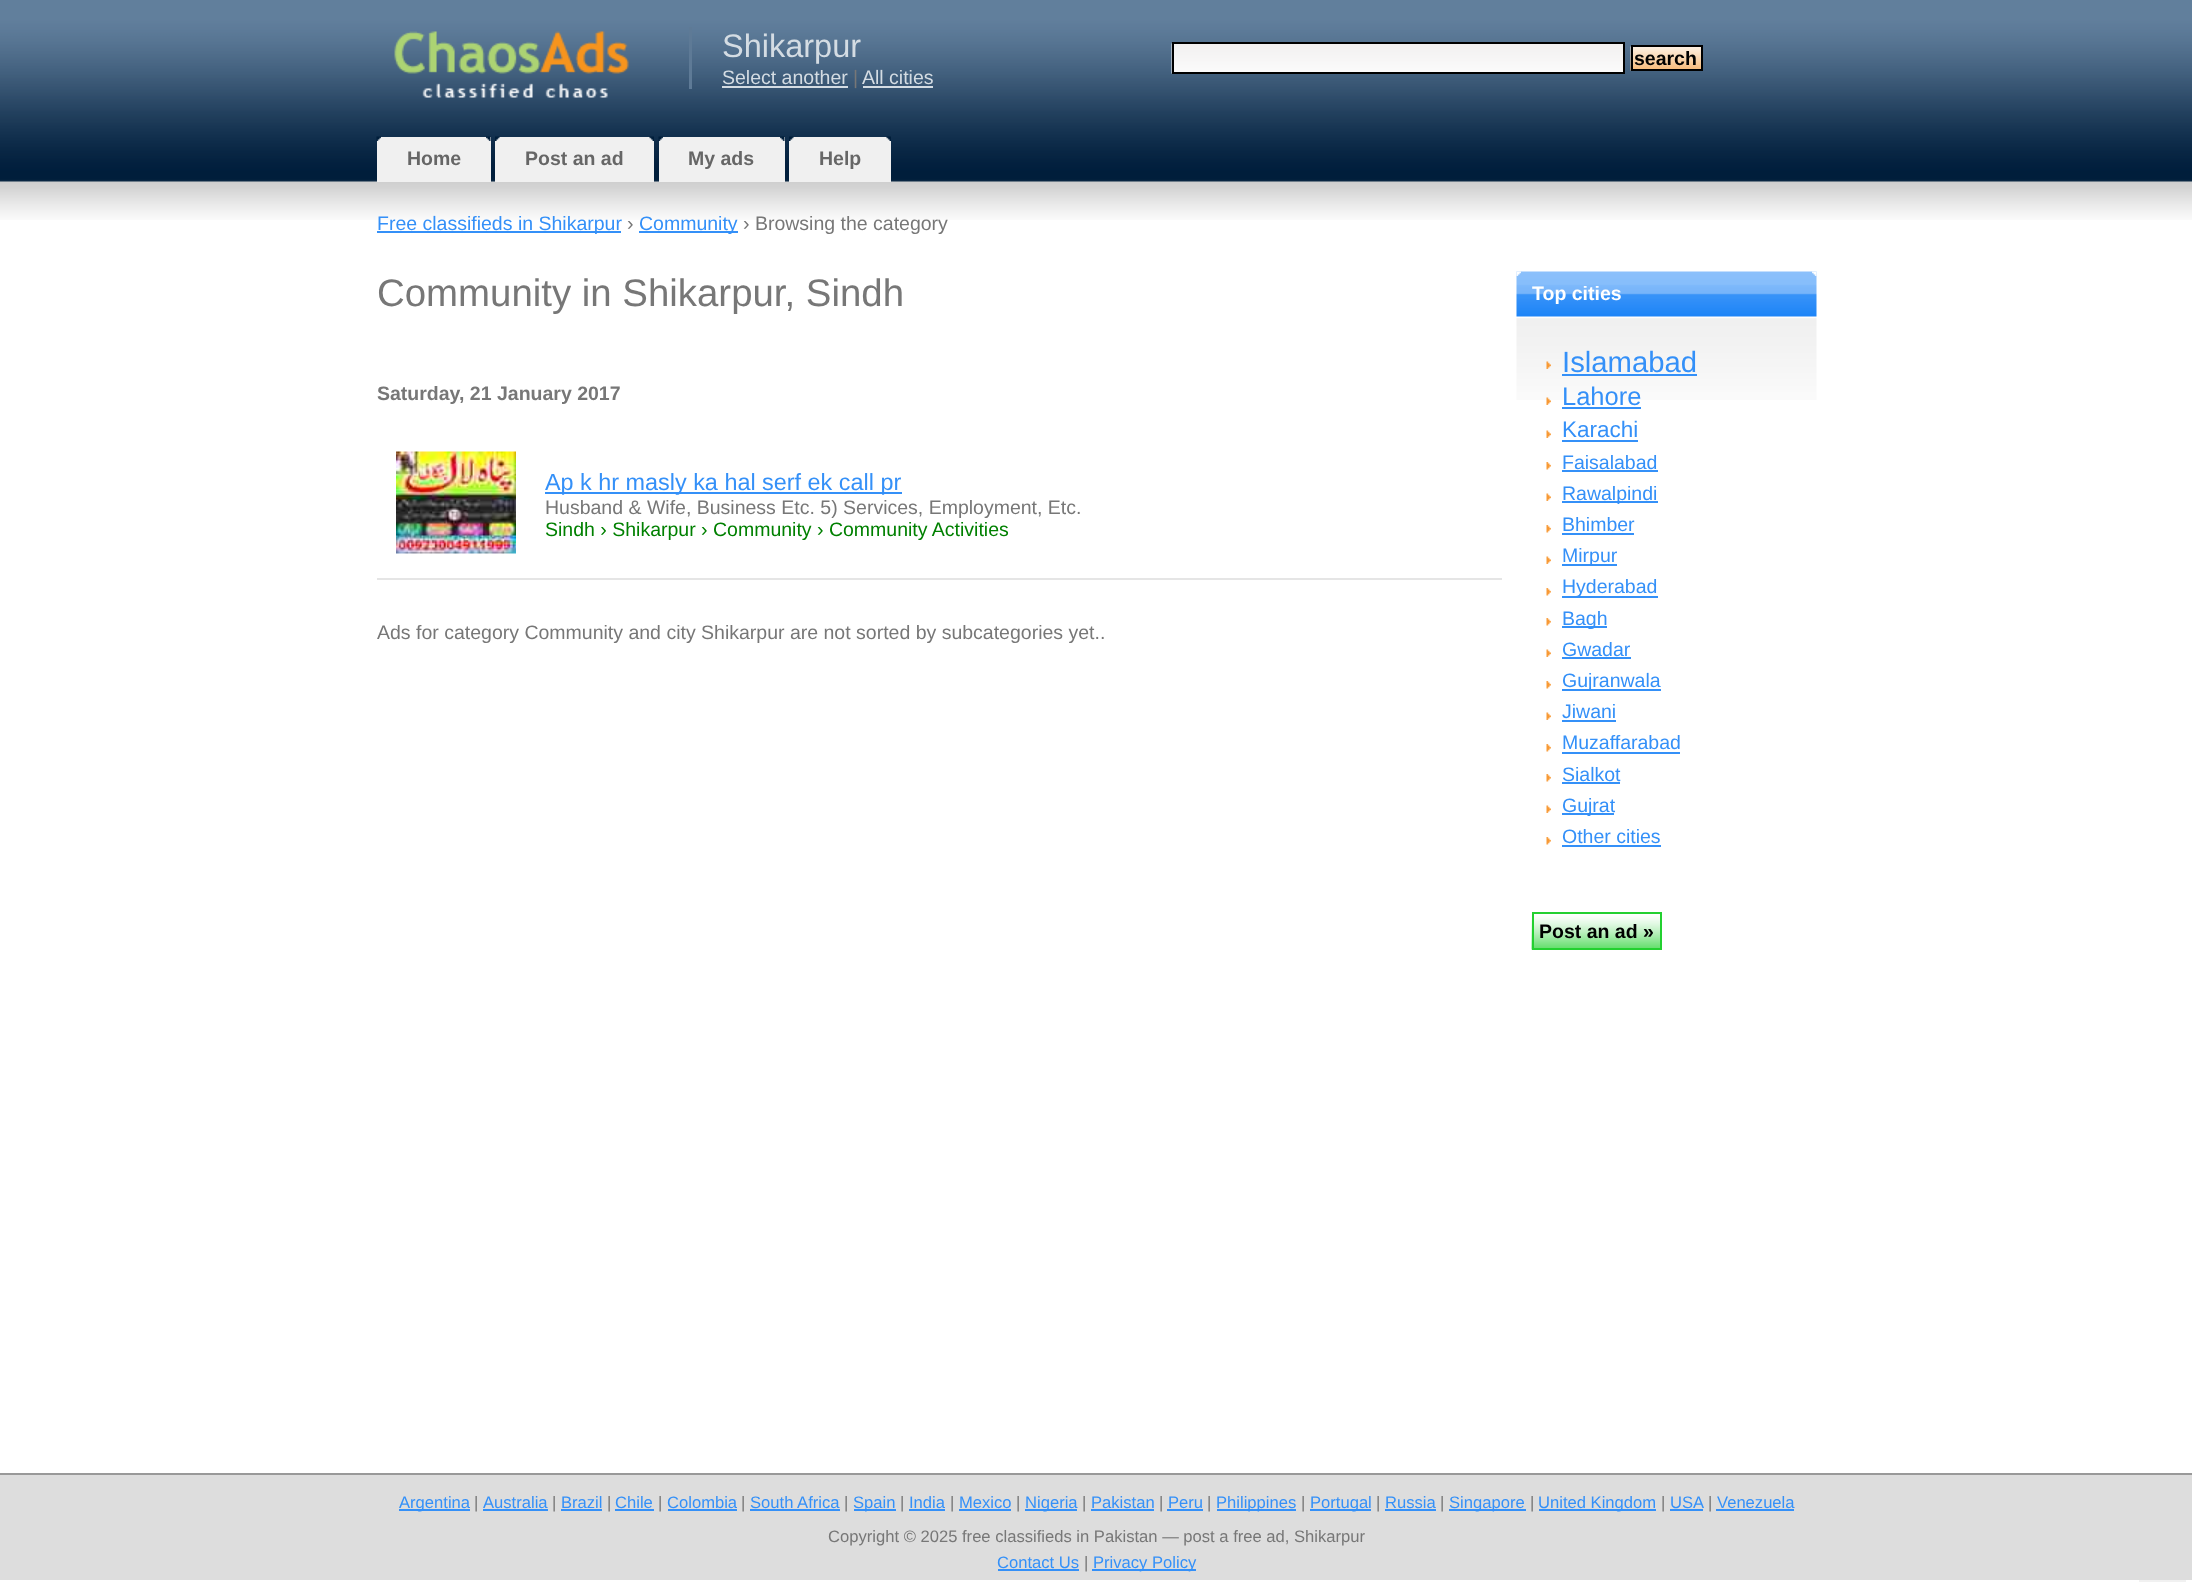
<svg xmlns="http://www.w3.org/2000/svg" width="2192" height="1582">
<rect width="100%" height="100%" fill="#fff"/>
<rect x="2139" y="1580" width="47" height="2" fill="#f1f1f1"/>
<image x="0" y="0" width="2192" height="220" href="media/1.png"/>
<image x="394" y="31" width="235" height="67" href="media/2.png"/>
<rect x="689" y="27" width="3" height="62" fill="#5e7a96"/>
<text x="722" y="57" style="font-family:Liberation Sans;font-size:32.5px;fill:#d4dce3">Shikarpur</text>
<text x="722" y="84" style="font-family:Liberation Sans;font-size:19.5px;fill:#d4dce3">Select another</text>
<rect x="722" y="86" width="126" height="2" fill="#d4dce3"/>
<text x="853" y="84" style="font-family:Liberation Sans;font-size:19.5px;fill:#777">|</text>
<text x="862" y="84" style="font-family:Liberation Sans;font-size:19.5px;fill:#d4dce3">All cities</text>
<rect x="863" y="86" width="70" height="2" fill="#d4dce3"/>
<image x="1171" y="43" width="452" height="31" href="media/3.png"/>
<rect x="1173" y="43" width="451" height="30" fill="none" stroke="#000" stroke-width="2"/>
<image x="1630" y="46" width="71" height="25" href="media/4.png"/>
<rect x="1632" y="46" width="70" height="24" fill="none" stroke="#000" stroke-width="2"/>
<text x="1634" y="65" style="font-family:Liberation Sans;font-size:19.5px;font-weight:bold;fill:#000">search</text>
<rect x="377" y="137" width="114" height="45" fill="#f0f0f0"/>
<image x="376" y="136" width="5" height="5" href="media/5.png"/>
<image x="486" y="136" width="5" height="5" href="media/6.png"/>
<text x="407" y="165" style="font-family:Liberation Sans;font-size:19.5px;font-weight:bold;fill:#666">Home</text>
<rect x="495" y="137" width="159" height="45" fill="#f0f0f0"/>
<image x="495" y="136" width="5" height="5" href="media/7.png"/>
<image x="649" y="136" width="5" height="5" href="media/8.png"/>
<text x="525" y="165" style="font-family:Liberation Sans;font-size:19.5px;font-weight:bold;fill:#666">Post an ad</text>
<rect x="659" y="137" width="126" height="45" fill="#f0f0f0"/>
<image x="658" y="136" width="5" height="5" href="media/5.png"/>
<image x="780" y="136" width="5" height="5" href="media/9.png"/>
<text x="688" y="165" style="font-family:Liberation Sans;font-size:19.5px;font-weight:bold;fill:#666">My ads</text>
<rect x="789" y="137" width="102" height="45" fill="#f0f0f0"/>
<image x="789" y="136" width="5" height="5" href="media/10.png"/>
<image x="886" y="136" width="5" height="5" href="media/11.png"/>
<text x="819" y="165" style="font-family:Liberation Sans;font-size:19.5px;font-weight:bold;fill:#666">Help</text>
<rect x="377" y="231" width="244" height="2" fill="#3490f8"/>
<text x="377" y="230" style="font-family:Liberation Sans;font-size:19.5px;fill:#3490f8">Free classifieds in Shikarpur</text>
<text x="627" y="230" style="font-family:Liberation Sans;font-size:19.5px;fill:#777">›</text>
<rect x="639" y="231" width="99" height="2" fill="#3490f8"/>
<text x="639" y="230" style="font-family:Liberation Sans;font-size:19.5px;fill:#3490f8">Community</text>
<text x="743" y="230" style="font-family:Liberation Sans;font-size:19.5px;fill:#777">› Browsing the category</text>
<text x="377" y="306" style="font-family:Liberation Sans;font-size:38.4px;fill:#777">Community in Shikarpur, Sindh</text>
<text x="377" y="400" style="font-family:Liberation Sans;font-size:19.5px;font-weight:bold;fill:#777">Saturday, 21 January 2017</text>
<rect x="377" y="578" width="1125" height="2" fill="#e5e5e5"/>
<image x="396" y="451" width="120" height="103" href="media/12.png"/>
<rect x="545" y="492" width="357" height="2" fill="#3490f8"/>
<text x="545" y="490" style="font-family:Liberation Sans;font-size:23.4px;fill:#3490f8">Ap k hr masly ka hal serf ek call pr</text>
<text x="545" y="514" style="font-family:Liberation Sans;font-size:19.5px;fill:#777">Husband &amp; Wife, Business Etc. 5) Services, Employment, Etc.</text>
<text x="545" y="536" style="font-family:Liberation Sans;font-size:19.5px;fill:#008000">Sindh › Shikarpur › Community › Community Activities</text>
<text x="377" y="639" style="font-family:Liberation Sans;font-size:19.5px;fill:#777">Ads for category Community and city Shikarpur are not sorted by subcategories yet..</text>
<image x="1516" y="271" width="301" height="129" href="media/13.png"/>
<image x="1812" y="271" width="5" height="5" href="media/14.png"/>
<image x="1516" y="271" width="5" height="5" href="media/15.png"/>
<text x="1532" y="300" style="font-family:Liberation Sans;font-size:19.5px;font-weight:bold;fill:#fff">Top cities</text>
<image x="1546" y="361" width="5" height="8" href="media/16.png"/>
<text x="1562" y="372" style="font-family:Liberation Sans;font-size:29.25px;fill:#3490f8">Islamabad</text>
<rect x="1562" y="374" width="135" height="2" fill="#3490f8"/>
<image x="1546" y="397" width="5" height="8" href="media/17.png"/>
<text x="1562" y="405" style="font-family:Liberation Sans;font-size:25.5px;fill:#3490f8">Lahore</text>
<rect x="1562" y="407" width="79" height="2" fill="#3490f8"/>
<image x="1546" y="430" width="5" height="8" href="media/18.png"/>
<text x="1562" y="437" style="font-family:Liberation Sans;font-size:22.5px;fill:#3490f8">Karachi</text>
<rect x="1562" y="440" width="76" height="2" fill="#3490f8"/>
<image x="1546" y="462" width="5" height="8" href="media/19.png"/>
<text x="1562" y="469" style="font-family:Liberation Sans;font-size:19.5px;fill:#3490f8">Faisalabad</text>
<rect x="1562" y="470" width="96" height="2" fill="#3490f8"/>
<image x="1546" y="493" width="5" height="8" href="media/18.png"/>
<rect x="1562" y="501" width="96" height="2" fill="#3490f8"/>
<text x="1562" y="500" style="font-family:Liberation Sans;font-size:19.5px;fill:#3490f8">Rawalpindi</text>
<image x="1546" y="525" width="5" height="8" href="media/19.png"/>
<text x="1562" y="531" style="font-family:Liberation Sans;font-size:19.5px;fill:#3490f8">Bhimber</text>
<rect x="1562" y="533" width="72" height="2" fill="#3490f8"/>
<image x="1546" y="556" width="5" height="8" href="media/18.png"/>
<rect x="1562" y="564" width="55" height="2" fill="#3490f8"/>
<text x="1562" y="562" style="font-family:Liberation Sans;font-size:19.5px;fill:#3490f8">Mirpur</text>
<image x="1546" y="588" width="5" height="8" href="media/19.png"/>
<rect x="1562" y="596" width="96" height="2" fill="#3490f8"/>
<text x="1562" y="593" style="font-family:Liberation Sans;font-size:19.5px;fill:#3490f8">Hyderabad</text>
<image x="1546" y="618" width="5" height="8" href="media/19.png"/>
<rect x="1562" y="626" width="45" height="2" fill="#3490f8"/>
<text x="1562" y="625" style="font-family:Liberation Sans;font-size:19.5px;fill:#3490f8">Bagh</text>
<image x="1546" y="649" width="5" height="8" href="media/18.png"/>
<text x="1562" y="656" style="font-family:Liberation Sans;font-size:19.5px;fill:#3490f8">Gwadar</text>
<rect x="1562" y="657" width="69" height="2" fill="#3490f8"/>
<image x="1546" y="681" width="5" height="8" href="media/19.png"/>
<rect x="1562" y="689" width="99" height="2" fill="#3490f8"/>
<text x="1562" y="687" style="font-family:Liberation Sans;font-size:19.5px;fill:#3490f8">Gujranwala</text>
<image x="1546" y="712" width="5" height="8" href="media/18.png"/>
<text x="1562" y="718" style="font-family:Liberation Sans;font-size:19.5px;fill:#3490f8">Jiwani</text>
<rect x="1562" y="720" width="54" height="2" fill="#3490f8"/>
<image x="1546" y="744" width="5" height="8" href="media/19.png"/>
<text x="1562" y="749" style="font-family:Liberation Sans;font-size:19.5px;fill:#3490f8">Muzaffarabad</text>
<rect x="1562" y="752" width="118" height="2" fill="#3490f8"/>
<image x="1546" y="774" width="5" height="8" href="media/19.png"/>
<text x="1562" y="781" style="font-family:Liberation Sans;font-size:19.5px;fill:#3490f8">Sialkot</text>
<rect x="1562" y="782" width="58" height="2" fill="#3490f8"/>
<image x="1546" y="805" width="5" height="8" href="media/18.png"/>
<rect x="1562" y="813" width="52" height="2" fill="#3490f8"/>
<text x="1562" y="812" style="font-family:Liberation Sans;font-size:19.5px;fill:#3490f8">Gujrat</text>
<image x="1546" y="837" width="5" height="8" href="media/19.png"/>
<text x="1562" y="843" style="font-family:Liberation Sans;font-size:19.5px;fill:#3490f8">Other cities</text>
<rect x="1562" y="845" width="99" height="2" fill="#3490f8"/>
<image x="1531" y="913" width="129" height="37" href="media/20.png"/>
<rect x="1533" y="913" width="128" height="36" fill="none" stroke="#23d030" stroke-width="2"/>
<text x="1539" y="938" style="font-family:Liberation Sans;font-size:19.5px;font-weight:bold;fill:#000">Post an ad »</text>
<rect y="1475" width="2192" height="105" fill="#ddd"/>
<rect y="1473" width="2192" height="2" fill="#999"/>
<rect x="399" y="1509" width="71" height="2" fill="#3490f8"/>
<text x="399" y="1508" style="font-family:Liberation Sans;font-size:16.6px;fill:#3490f8">Argentina</text>
<text x="474" y="1508" style="font-family:Liberation Sans;font-size:16.6px;fill:#777">|</text>
<text x="483" y="1508" style="font-family:Liberation Sans;font-size:16.6px;fill:#3490f8">Australia</text>
<rect x="483" y="1509" width="65" height="2" fill="#3490f8"/>
<text x="552" y="1508" style="font-family:Liberation Sans;font-size:16.6px;fill:#777">|</text>
<text x="561" y="1508" style="font-family:Liberation Sans;font-size:16.6px;fill:#3490f8">Brazil</text>
<rect x="561" y="1509" width="41" height="2" fill="#3490f8"/>
<text x="607" y="1508" style="font-family:Liberation Sans;font-size:16.6px;fill:#777">|</text>
<text x="615" y="1508" style="font-family:Liberation Sans;font-size:16.6px;fill:#3490f8">Chile</text>
<rect x="615" y="1509" width="39" height="2" fill="#3490f8"/>
<text x="658" y="1508" style="font-family:Liberation Sans;font-size:16.6px;fill:#777">|</text>
<text x="667" y="1508" style="font-family:Liberation Sans;font-size:16.6px;fill:#3490f8">Colombia</text>
<rect x="668" y="1509" width="69" height="2" fill="#3490f8"/>
<text x="741" y="1508" style="font-family:Liberation Sans;font-size:16.6px;fill:#777">|</text>
<text x="750" y="1508" style="font-family:Liberation Sans;font-size:16.6px;fill:#3490f8">South Africa</text>
<rect x="750" y="1509" width="90" height="2" fill="#3490f8"/>
<text x="844" y="1508" style="font-family:Liberation Sans;font-size:16.6px;fill:#777">|</text>
<rect x="854" y="1509" width="42" height="2" fill="#3490f8"/>
<text x="853" y="1508" style="font-family:Liberation Sans;font-size:16.6px;fill:#3490f8">Spain</text>
<text x="900" y="1508" style="font-family:Liberation Sans;font-size:16.6px;fill:#777">|</text>
<text x="909" y="1508" style="font-family:Liberation Sans;font-size:16.6px;fill:#3490f8">India</text>
<rect x="909" y="1509" width="36" height="2" fill="#3490f8"/>
<text x="950" y="1508" style="font-family:Liberation Sans;font-size:16.6px;fill:#777">|</text>
<text x="959" y="1508" style="font-family:Liberation Sans;font-size:16.6px;fill:#3490f8">Mexico</text>
<rect x="959" y="1509" width="52" height="2" fill="#3490f8"/>
<text x="1016" y="1508" style="font-family:Liberation Sans;font-size:16.6px;fill:#777">|</text>
<rect x="1025" y="1509" width="52" height="2" fill="#3490f8"/>
<text x="1025" y="1508" style="font-family:Liberation Sans;font-size:16.6px;fill:#3490f8">Nigeria</text>
<text x="1082" y="1508" style="font-family:Liberation Sans;font-size:16.6px;fill:#777">|</text>
<text x="1091" y="1508" style="font-family:Liberation Sans;font-size:16.6px;fill:#3490f8">Pakistan</text>
<rect x="1091" y="1509" width="63" height="2" fill="#3490f8"/>
<text x="1159" y="1508" style="font-family:Liberation Sans;font-size:16.6px;fill:#777">|</text>
<text x="1168" y="1508" style="font-family:Liberation Sans;font-size:16.6px;fill:#3490f8">Peru</text>
<rect x="1167" y="1509" width="36" height="2" fill="#3490f8"/>
<text x="1207" y="1508" style="font-family:Liberation Sans;font-size:16.6px;fill:#777">|</text>
<rect x="1217" y="1509" width="79" height="2" fill="#3490f8"/>
<text x="1216" y="1508" style="font-family:Liberation Sans;font-size:16.6px;fill:#3490f8">Philippines</text>
<text x="1301" y="1508" style="font-family:Liberation Sans;font-size:16.6px;fill:#777">|</text>
<rect x="1310" y="1509" width="61" height="2" fill="#3490f8"/>
<text x="1310" y="1508" style="font-family:Liberation Sans;font-size:16.6px;fill:#3490f8">Portugal</text>
<text x="1376" y="1508" style="font-family:Liberation Sans;font-size:16.6px;fill:#777">|</text>
<text x="1385" y="1508" style="font-family:Liberation Sans;font-size:16.6px;fill:#3490f8">Russia</text>
<rect x="1385" y="1509" width="51" height="2" fill="#3490f8"/>
<text x="1440" y="1508" style="font-family:Liberation Sans;font-size:16.6px;fill:#777">|</text>
<rect x="1449" y="1509" width="77" height="2" fill="#3490f8"/>
<text x="1449" y="1508" style="font-family:Liberation Sans;font-size:16.6px;fill:#3490f8">Singapore</text>
<text x="1530" y="1508" style="font-family:Liberation Sans;font-size:16.6px;fill:#777">|</text>
<rect x="1539" y="1509" width="117" height="2" fill="#3490f8"/>
<text x="1538" y="1508" style="font-family:Liberation Sans;font-size:16.6px;fill:#3490f8">United Kingdom</text>
<text x="1661" y="1508" style="font-family:Liberation Sans;font-size:16.6px;fill:#777">|</text>
<text x="1670" y="1508" style="font-family:Liberation Sans;font-size:16.6px;fill:#3490f8">USA</text>
<rect x="1670" y="1509" width="33" height="2" fill="#3490f8"/>
<text x="1708" y="1508" style="font-family:Liberation Sans;font-size:16.6px;fill:#777">|</text>
<text x="1717" y="1508" style="font-family:Liberation Sans;font-size:16.6px;fill:#3490f8">Venezuela</text>
<rect x="1716" y="1509" width="78" height="2" fill="#3490f8"/>
<text x="828" y="1542" style="font-family:Liberation Sans;font-size:16.6px;fill:#777">Copyright © 2025 free classifieds in Pakistan — post a free ad, Shikarpur</text>
<text x="997" y="1568" style="font-family:Liberation Sans;font-size:16.6px;fill:#3490f8">Contact Us</text>
<rect x="998" y="1569" width="81" height="2" fill="#3490f8"/>
<text x="1084" y="1568" style="font-family:Liberation Sans;font-size:16.6px;fill:#777">|</text>
<rect x="1092" y="1569" width="104" height="2" fill="#3490f8"/>
<text x="1093" y="1568" style="font-family:Liberation Sans;font-size:16.6px;fill:#3490f8">Privacy Policy</text>
</svg>
